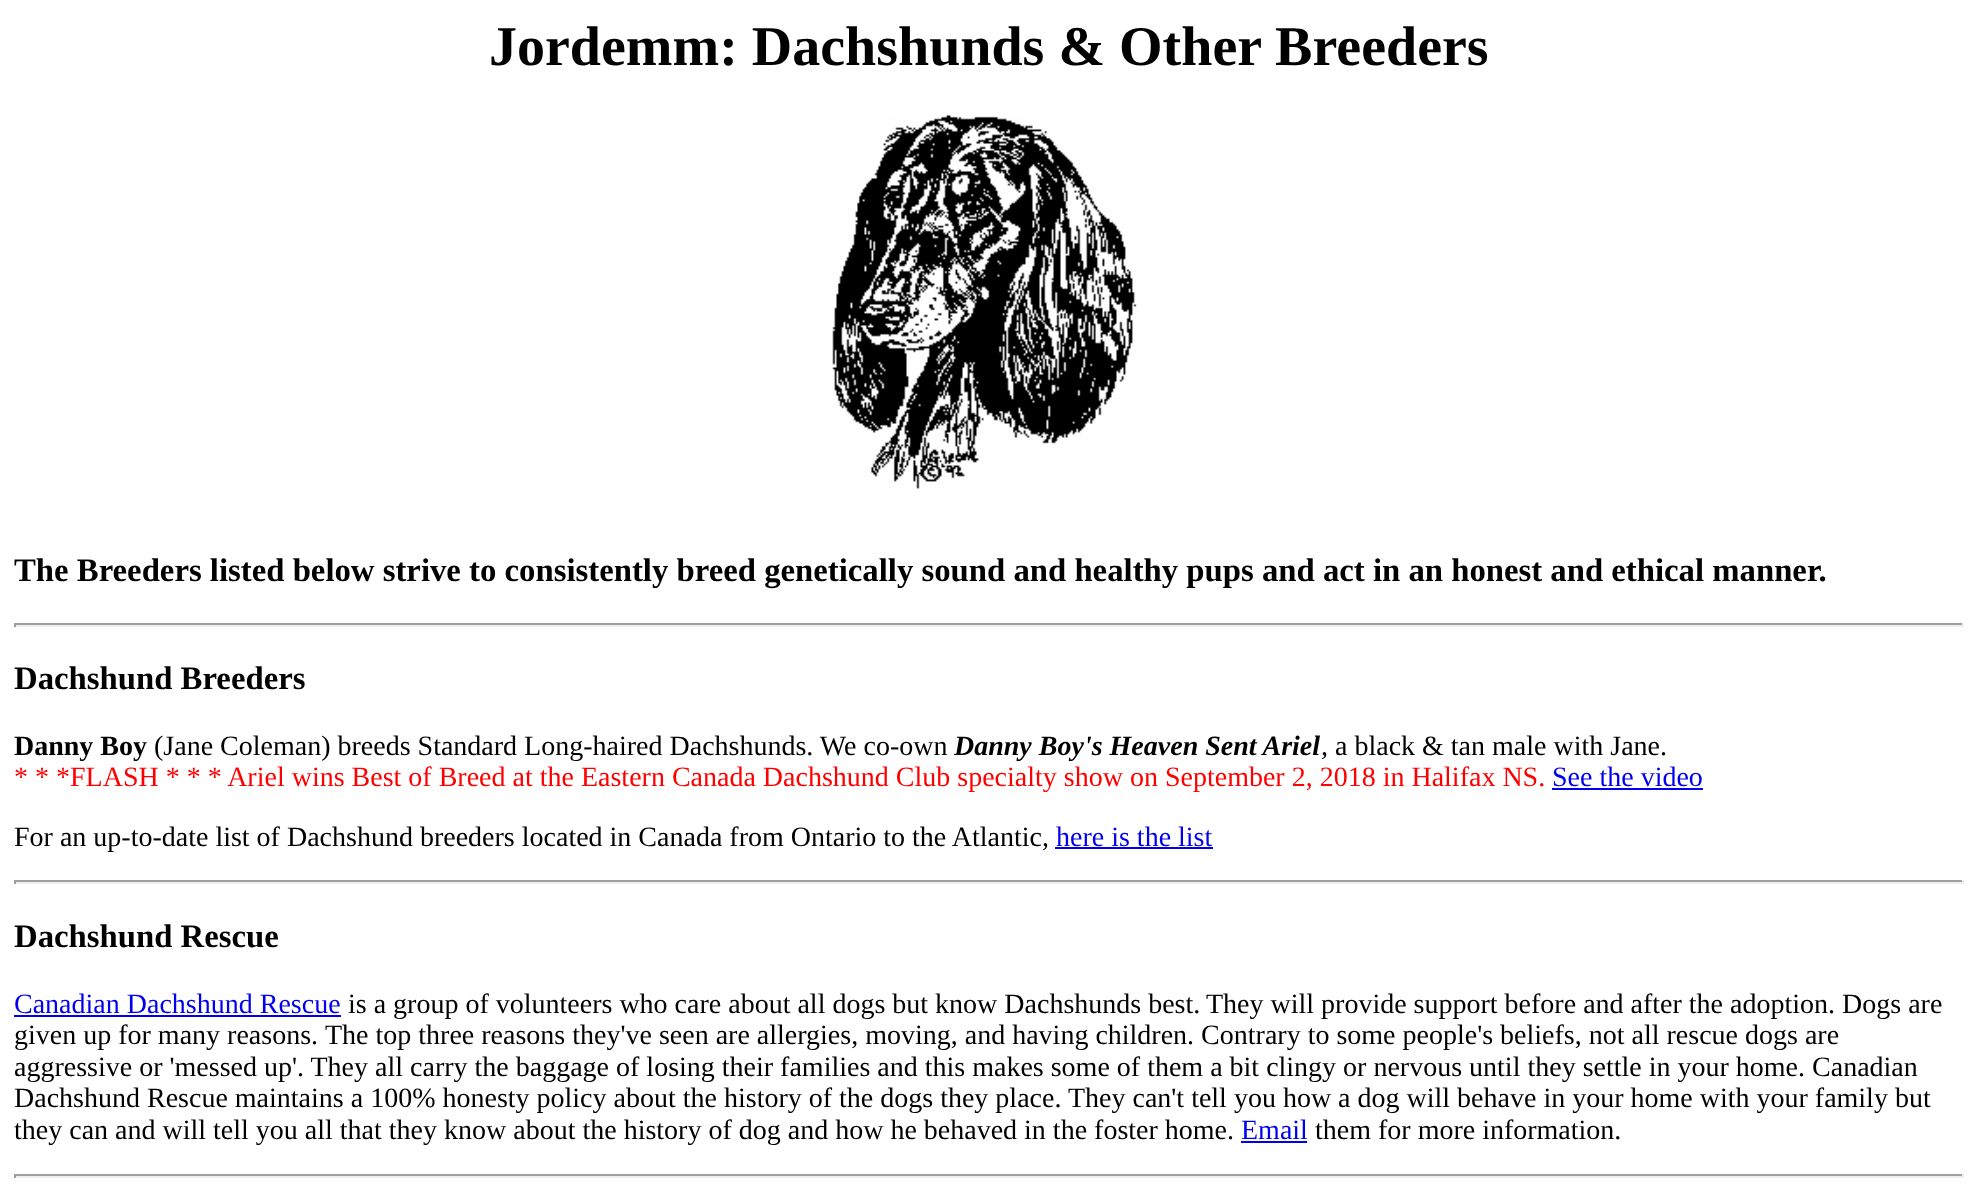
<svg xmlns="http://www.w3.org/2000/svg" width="1976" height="1193">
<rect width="100%" height="100%" fill="#fff"/>
<text x="489" y="65" style="font-family:Liberation Serif;font-size:56px;font-weight:bold;fill:#000">Jordemm: Dachshunds &amp; Other Breeders</text>
<image x="832" y="115" width="305" height="374" href="media/1.png"/>
<text x="14" y="581" style="font-family:Liberation Serif;font-size:32.75px;font-weight:bold;fill:#000">The Breeders listed below strive to consistently breed genetically sound and healthy pups and act in an honest and ethical manner.</text>
<rect x="14" y="623" width="1950" height="2" fill="#9f9f9f"/>
<rect x="1962" y="623" width="2" height="4" fill="#eee"/>
<rect x="14" y="625" width="1950" height="2" fill="#eee"/>
<rect x="14" y="623" width="2" height="4" fill="#9f9f9f"/>
<text x="14" y="689" style="font-family:Liberation Serif;font-size:32.75px;font-weight:bold;fill:#000">Dachshund Breeders</text>
<text x="14" y="755" style="font-family:Liberation Serif;font-size:28px;font-weight:bold;fill:#000">Danny Boy</text>
<text x="154" y="755" style="font-family:Liberation Serif;font-size:28px;fill:#000">(Jane Coleman) breeds Standard Long-haired Dachshunds. We co-own</text>
<text x="954" y="755" style="font-family:Liberation Serif;font-size:28px;font-weight:bold;font-style:italic;fill:#000">Danny Boy's Heaven Sent Ariel</text>
<text x="1321" y="755" style="font-family:Liberation Serif;font-size:28px;font-style:italic;fill:#000">,</text>
<text x="1335" y="755" style="font-family:Liberation Serif;font-size:28px;fill:#000">a black &amp; tan male with Jane.</text>
<text x="14" y="786" style="font-family:Liberation Serif;font-size:28px;fill:#f00">* * *FLASH * * * Ariel wins Best of Breed at the Eastern Canada Dachshund Club specialty show on September 2, 2018 in Halifax NS.</text>
<text x="1552" y="786" style="font-family:Liberation Serif;font-size:28px;fill:#00e">See the video</text>
<rect x="1552" y="788" width="151" height="2" fill="#00e"/>
<text x="14" y="846" style="font-family:Liberation Serif;font-size:28px;fill:#000">For an up-to-date list of Dachshund breeders located in Canada from Ontario to the Atlantic,</text>
<text x="1056" y="846" style="font-family:Liberation Serif;font-size:28px;fill:#00e">here is the list</text>
<rect x="1055" y="847" width="158" height="2" fill="#00e"/>
<rect x="14" y="880" width="1950" height="2" fill="#9f9f9f"/>
<rect x="1962" y="880" width="2" height="4" fill="#eee"/>
<rect x="14" y="882" width="1950" height="2" fill="#eee"/>
<rect x="14" y="880" width="2" height="4" fill="#9f9f9f"/>
<text x="14" y="947" style="font-family:Liberation Serif;font-size:32.75px;font-weight:bold;fill:#000">Dachshund Rescue</text>
<text x="14" y="1013" style="font-family:Liberation Serif;font-size:28px;fill:#00e">Canadian Dachshund Rescue</text>
<rect x="14" y="1015" width="327" height="2" fill="#00e"/>
<text x="348" y="1013" style="font-family:Liberation Serif;font-size:28px;fill:#000">is a group of volunteers who care about all dogs but know Dachshunds best.</text>
<text x="1206" y="1013" style="font-family:Liberation Serif;font-size:28px;fill:#000">They will provide support before and after the adoption. Dogs are</text>
<text x="14" y="1044" style="font-family:Liberation Serif;font-size:28px;fill:#000">given up for many reasons.</text>
<text x="325" y="1044" style="font-family:Liberation Serif;font-size:28px;fill:#000">The top three reasons they've seen are allergies, moving, and having children. Contrary to some people's beliefs, not all rescue dogs are</text>
<text x="14" y="1076" style="font-family:Liberation Serif;font-size:28px;fill:#000">aggressive or 'messed up'. They all carry the baggage of losing their families and this makes some of them a bit clingy or nervous until they settle in your home. Canadian</text>
<text x="14" y="1107" style="font-family:Liberation Serif;font-size:28px;fill:#000">Dachshund Rescue maintains a 100% honesty policy about the history of the dogs they place. They can't tell you how a dog will behave in your home with your family but</text>
<text x="14" y="1139" style="font-family:Liberation Serif;font-size:28px;fill:#000">they can and will tell you all that they know about the history of dog and how he behaved in the foster home.</text>
<text x="1241" y="1139" style="font-family:Liberation Serif;font-size:28px;fill:#00e">Email</text>
<rect x="1241" y="1141" width="66" height="2" fill="#00e"/>
<text x="1315" y="1139" style="font-family:Liberation Serif;font-size:28px;fill:#000">them for more information.</text>
<rect x="14" y="1174" width="1950" height="2" fill="#9f9f9f"/>
<rect x="1962" y="1174" width="2" height="4" fill="#eee"/>
<rect x="14" y="1176" width="1950" height="2" fill="#eee"/>
<rect x="14" y="1174" width="2" height="4" fill="#9f9f9f"/>
</svg>
